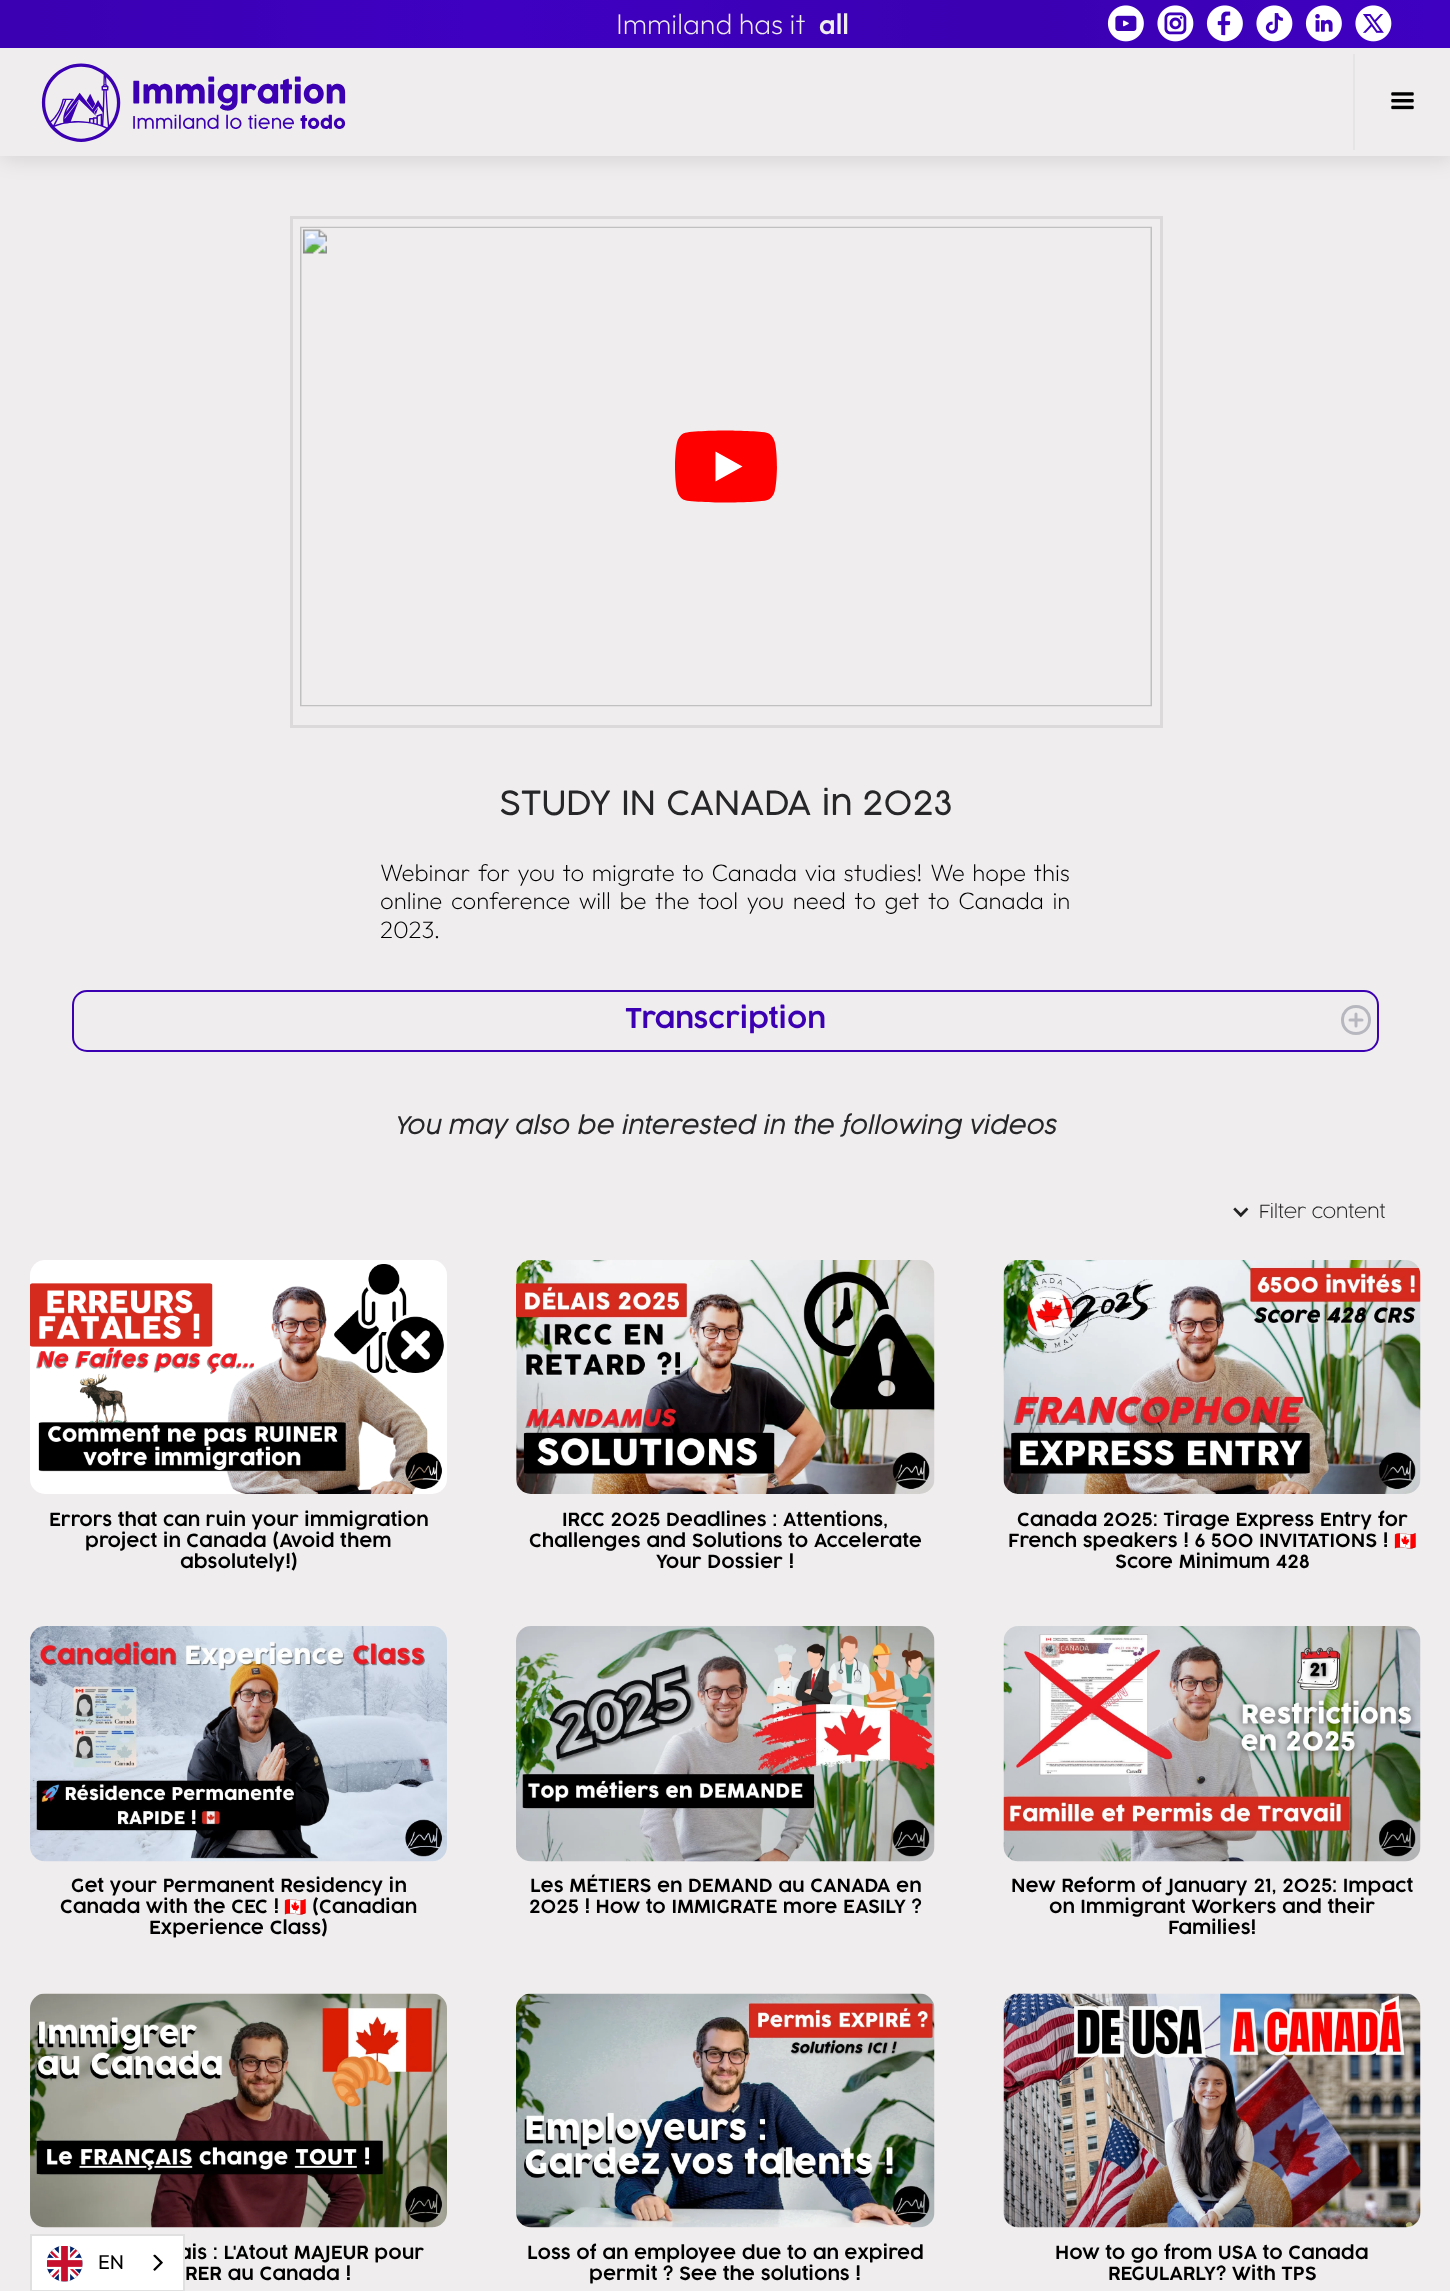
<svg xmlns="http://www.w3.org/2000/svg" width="1450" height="2291">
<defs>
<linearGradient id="g1" gradientUnits="userSpaceOnUse" x1="0" y1="24" x2="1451" y2="24"><stop offset="0" stop-color="#3b00b1"/><stop offset="0.34" stop-color="#3f00c2"/><stop offset="0.69" stop-color="#3b00b1"/><stop offset="1" stop-color="#3f00c2"/></linearGradient>
</defs>
<rect width="100%" height="100%" fill="#f0edee"/>
<rect x="2" y="2" width="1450" height="156" fill="#0000001f" filter="blur(11px)"/>
<rect width="1450" height="48" fill="url(#g1)"/>
<text x="616" y="34" style="font-family:Outfit;font-size:28.75px;font-weight:200;fill:#f0edee">Immiland has it</text>
<text x="819" y="34" style="font-family:Outfit;font-size:28.75px;font-weight:500;fill:#f0edee">all</text>
<image x="1107" y="5" width="37" height="37" href="media/1.png"/>
<image x="1157" y="5" width="37" height="37" href="media/2.png"/>
<image x="1206" y="5" width="37" height="37" href="media/3.png"/>
<image x="1256" y="5" width="37" height="37" href="media/4.png"/>
<image x="1305" y="5" width="37" height="37" href="media/5.png"/>
<image x="1355" y="5" width="37" height="37" href="media/6.png"/>
<rect y="48" width="1450" height="108" fill="#f0edee"/>
<image x="41" y="63" width="305" height="79" href="media/7.png"/>
<rect x="1353" y="54" width="2" height="96" fill="#e5e5e5"/>
<image x="1391" y="92" width="23" height="18" href="media/8.png"/>
<rect x="291.5" y="217.5" width="870" height="509" fill="none" stroke="#dcd9da" stroke-width="3"/>
<image x="300" y="226" width="852" height="481" href="media/9.png"/>
<text x="499" y="815" style="font-family:'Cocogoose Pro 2';font-size:33px;font-weight:300;fill:#262628">STUDY IN CANADA in 2023</text>
<text x="380" y="881" word-spacing="2.25" style="font-family:Outfit;font-size:24px;font-weight:200;fill:#000">Webinar for you to migrate to Canada via studies! We hope this</text>
<text x="380" y="909" word-spacing="3.25" style="font-family:Outfit;font-size:24px;font-weight:200;fill:#000">online conference will be the tool you need to get to Canada in</text>
<text x="380" y="938" style="font-family:Outfit;font-size:24px;font-weight:200;fill:#000">2023.</text>
<rect x="73" y="991" width="1305" height="60" rx="14" fill="none" stroke="#3b00b1" stroke-width="2"/>
<text x="625" y="1028" style="font-family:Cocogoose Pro;font-size:27px;font-weight:300;fill:#3b00b1">Transcription</text>
<path d="M1356 1014v12m6-6h-12m6 13.5c-18 0-18-27 0-27c18 0 18 27 0 27z" fill="none" stroke="#b7b8bf" stroke-width="3" stroke-linecap="round" stroke-linejoin="round"/>
<text x="394" y="1134" style="font-family:Cocogoose Pro;font-size:24px;font-weight:300;font-style:italic;fill:#262628">You may also be interested in the following videos</text>
<image x="1233" y="1207" width="16" height="11" href="media/10.png"/>
<text x="1259" y="1218" style="font-family:Cocogoose Pro;font-size:18px;font-weight:200;fill:#222">Filter content</text>
<image x="30" y="1260" width="417" height="234" href="media/11.png"/>
<text x="49" y="1526" style="font-family:Cocogoose Pro;font-size:18px;font-weight:300;fill:#000">Errors that can ruin your immigration</text>
<text x="85" y="1547" style="font-family:Cocogoose Pro;font-size:18px;font-weight:300;fill:#000">project in Canada (Avoid them</text>
<text x="180" y="1568" style="font-family:Cocogoose Pro;font-size:18px;font-weight:300;fill:#000">absolutely!)</text>
<image x="516" y="1260" width="419" height="234" href="media/12.png"/>
<text x="562" y="1526" style="font-family:Cocogoose Pro;font-size:18px;font-weight:300;fill:#000">IRCC 2025 Deadlines : Attentions,</text>
<text x="529" y="1547" style="font-family:Cocogoose Pro;font-size:18px;font-weight:300;fill:#000">Challenges and Solutions to Accelerate</text>
<text x="656" y="1568" style="font-family:Cocogoose Pro;font-size:18px;font-weight:300;fill:#000">Your Dossier !</text>
<image x="1003" y="1260" width="418" height="234" href="media/13.png"/>
<text x="1017" y="1526" style="font-family:Cocogoose Pro;font-size:18px;font-weight:300;fill:#000">Canada 2025: Tirage Express Entry for</text>
<text x="1008" y="1547" style="font-family:Cocogoose Pro;font-size:18px;font-weight:300;fill:#000">French speakers ! 6 500 INVITATIONS !</text>
<text x="1394" y="1547" style="font-family:Noto Color Emoji;font-size:18px;fill:#000">🇨🇦</text>
<text x="1115" y="1568" style="font-family:Cocogoose Pro;font-size:18px;font-weight:300;fill:#000">Score Minimum 428</text>
<image x="30" y="1626" width="417" height="236" href="media/14.png"/>
<text x="71" y="1892" style="font-family:Cocogoose Pro;font-size:18px;font-weight:300;fill:#000">Get your Permanent Residency in</text>
<text x="60" y="1913" style="font-family:Cocogoose Pro;font-size:18px;font-weight:300;fill:#000">Canada with the CEC !</text>
<text x="284" y="1913" style="font-family:Noto Color Emoji;font-size:18px;fill:#000">🇨🇦</text>
<text x="312" y="1913" style="font-family:Cocogoose Pro;font-size:18px;font-weight:300;fill:#000">(Canadian</text>
<text x="149" y="1934" style="font-family:Cocogoose Pro;font-size:18px;font-weight:300;fill:#000">Experience Class)</text>
<image x="516" y="1626" width="419" height="236" href="media/15.png"/>
<text x="530" y="1892" style="font-family:Cocogoose Pro;font-size:18px;font-weight:300;fill:#000">Les MÉTIERS en DEMAND au CANADA en</text>
<text x="529" y="1913" style="font-family:Cocogoose Pro;font-size:18px;font-weight:300;fill:#000">2025 ! How to IMMIGRATE more EASILY ?</text>
<image x="1003" y="1626" width="418" height="236" href="media/16.png"/>
<text x="1011" y="1892" style="font-family:Cocogoose Pro;font-size:18px;font-weight:300;fill:#000">New Reform of January 21, 2025: Impact</text>
<text x="1049" y="1913" style="font-family:Cocogoose Pro;font-size:18px;font-weight:300;fill:#000">on Immigrant Workers and their</text>
<text x="1168" y="1934" style="font-family:Cocogoose Pro;font-size:18px;font-weight:300;fill:#000">Families!</text>
<image x="30" y="1993" width="417" height="235" href="media/17.png"/>
<text x="178" y="2259" style="font-family:Cocogoose Pro;font-size:18px;font-weight:300;fill:#000">ais : L'Atout MAJEUR pour</text>
<text x="185" y="2280" style="font-family:Cocogoose Pro;font-size:18px;font-weight:300;fill:#000">RER au Canada !</text>
<image x="516" y="1993" width="419" height="235" href="media/18.png"/>
<text x="527" y="2259" style="font-family:Cocogoose Pro;font-size:18px;font-weight:300;fill:#000">Loss of an employee due to an expired</text>
<text x="589" y="2280" style="font-family:Cocogoose Pro;font-size:18px;font-weight:300;fill:#000">permit ? See the solutions !</text>
<image x="1003" y="1993" width="418" height="235" href="media/19.png"/>
<text x="1055" y="2259" style="font-family:Cocogoose Pro;font-size:18px;font-weight:300;fill:#000">How to go from USA to Canada</text>
<text x="1108" y="2280" style="font-family:Cocogoose Pro;font-size:18px;font-weight:300;fill:#000">REGULARLY? With TPS</text>
<rect x="31" y="2235" width="153" height="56" fill="#fff" stroke="#e0e0e0" stroke-width="2"/>
<image x="47" y="2246" width="36" height="36" href="media/20.png"/>
<text x="98" y="2269" style="font-family:Outfit;font-size:20px;fill:#000">EN</text>
<image x="153" y="2254" width="10" height="17" href="media/21.png"/>
</svg>
